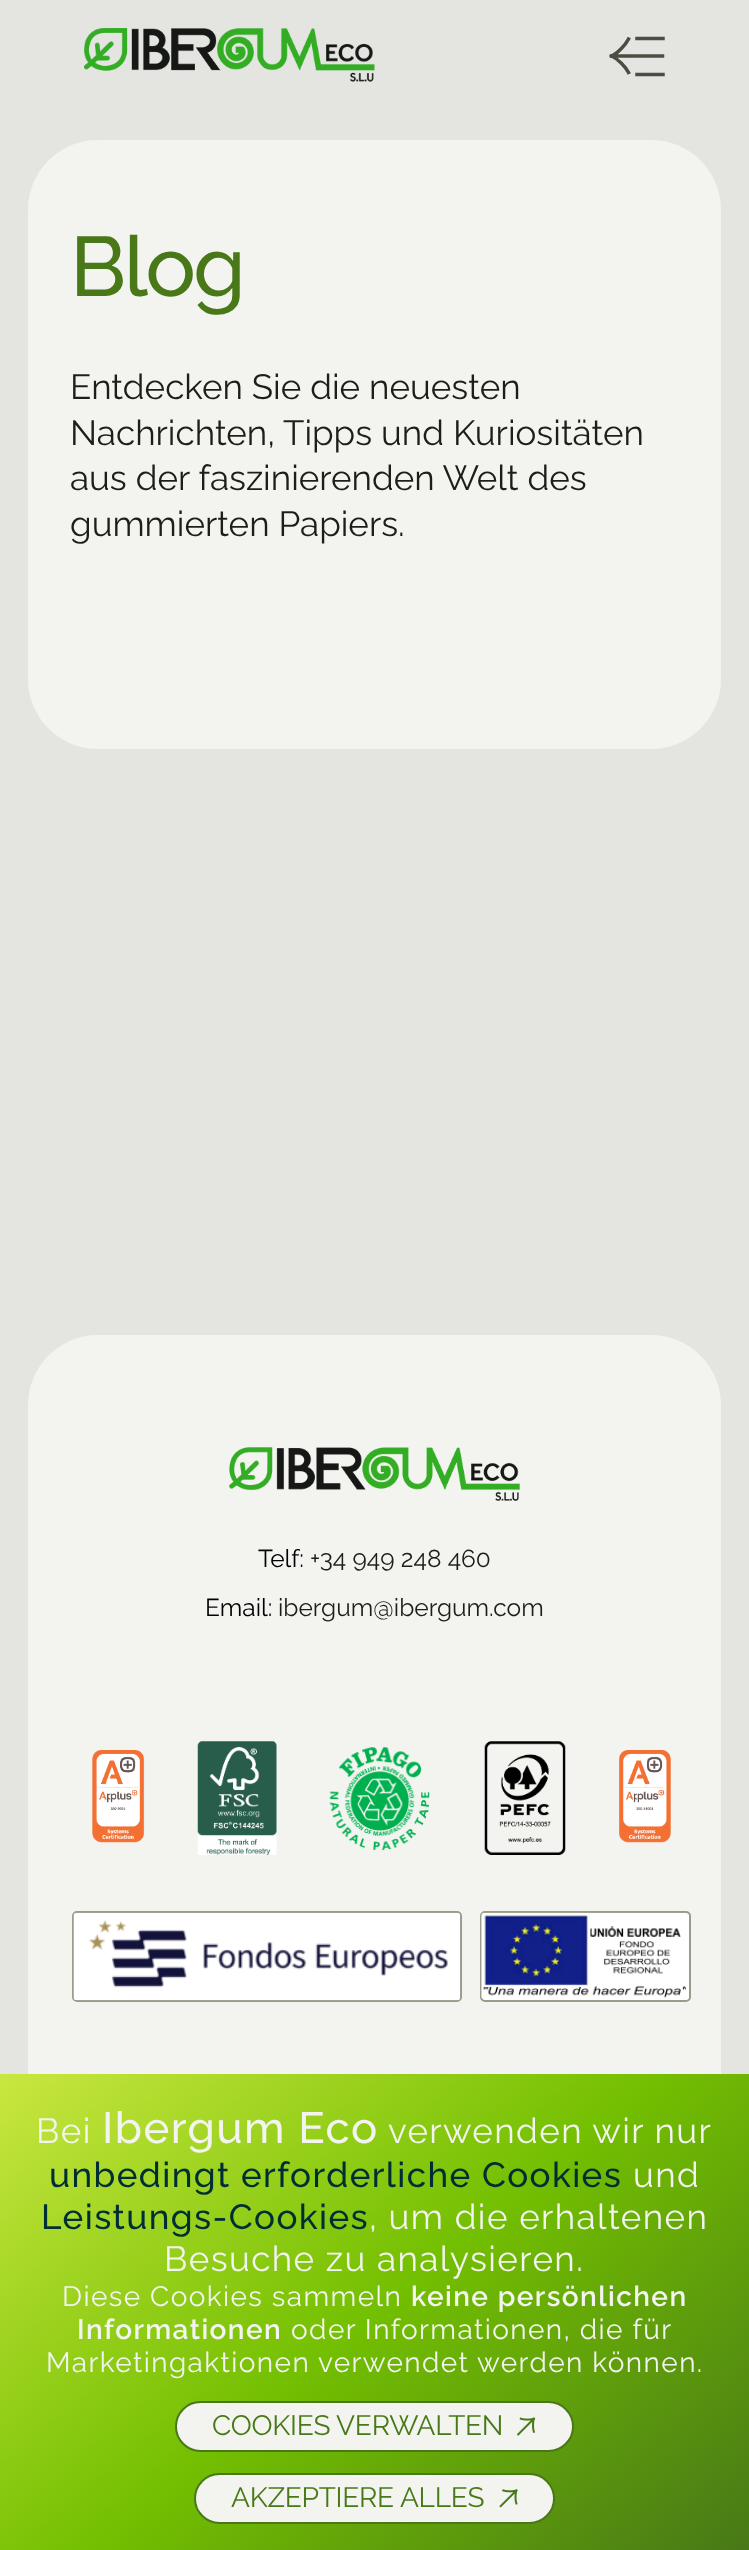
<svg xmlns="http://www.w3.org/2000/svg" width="749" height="2550">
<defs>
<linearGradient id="g1" gradientUnits="userSpaceOnUse" x1="102" y1="1988" x2="647" y2="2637"><stop offset="0" stop-color="#c9e740"/><stop offset="0.5" stop-color="#73bf01"/><stop offset="1" stop-color="#487817"/></linearGradient>
</defs>
<rect width="100%" height="100%" fill="#e4e5e1"/>
<image x="84" y="28" width="291" height="54" href="media/1.png"/>
<path d="M611.5 56h51m-51 0c6 2.5 14 10.5 17 16.5m-17-16.5c6-2.5 14-11 17-17" fill="none" stroke="#4b4d42" stroke-width="3.5" stroke-linecap="square" stroke-linejoin="round"/>
<path d="M637 38.5h26m-26 36h26" fill="none" stroke="#4b4d42" stroke-width="3.5" stroke-linecap="square"/>
<rect x="28" y="140" width="693" height="609" rx="70" fill="#f3f4f0"/>
<text x="70" y="296" style="font-family:Raleway;font-size:84px;font-weight:500;letter-spacing:-2.5px;fill:#487817">Blog</text>
<text x="70" y="399" style="font-family:Raleway;font-size:35px;fill:#1d1e15">Entdecken Sie die neuesten</text>
<text x="70" y="445" style="font-family:Raleway;font-size:35px;fill:#1d1e15">Nachrichten, Tipps und Kuriositäten</text>
<text x="70" y="490" style="font-family:Raleway;font-size:35px;fill:#1d1e15">aus der faszinierenden Welt des</text>
<text x="70" y="536" style="font-family:Raleway;font-size:35px;fill:#1d1e15">gummierten Papiers.</text>
<path d="M98 1335h553c38.5 0 70 31.5 70 70v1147h-693v-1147c0-38.5 31.5-70 70-70z" fill="#f3f4f0"/>
<image x="229" y="1447" width="291" height="54" href="media/2.png"/>
<text x="258" y="1567" style="font-family:Raleway;font-size:24.5px;fill:#000">Telf:</text>
<text x="310" y="1567" style="font-family:Raleway;font-size:24.5px;fill:#1d1e15">+34 949 248 460</text>
<text x="205" y="1616" style="font-family:Raleway;font-size:24.5px;fill:#000">Email:</text>
<text x="278" y="1616" style="font-family:Raleway;font-size:24.5px;fill:#1d1e15">ibergum@ibergum.com</text>
<image x="92" y="1750" width="53" height="93" href="media/3.png"/>
<image x="197" y="1741" width="80" height="114" href="media/4.png"/>
<image x="329" y="1747" width="101" height="104" href="media/5.png"/>
<image x="484" y="1741" width="82" height="114" href="media/6.png"/>
<image x="619" y="1750" width="52" height="93" href="media/7.png"/>
<rect x="73" y="1912" width="388" height="89" rx="4" fill="none" stroke="#9a9c8b" stroke-width="2"/>
<image x="73" y="1912" width="388" height="89" href="media/8.png"/>
<rect x="481" y="1912" width="209" height="89" rx="4" fill="#fff" stroke="#9a9c8b" stroke-width="2"/>
<image x="481" y="1912" width="205" height="87" href="media/9.png"/>
<rect y="2074" width="749" height="476" fill="url(#g1)"/>
<text x="36" y="2143" style="font-family:Raleway;font-size:35px;letter-spacing:1.4px;fill:#f3f4f0">Bei</text>
<text x="102" y="2143" style="font-family:Raleway;font-size:43.75px;font-weight:500;letter-spacing:1.4px;fill:#f3f4f0">Ibergum Eco</text>
<text x="388" y="2143" style="font-family:Raleway;font-size:35px;letter-spacing:1.4px;fill:#f3f4f0">verwenden wir nur</text>
<text x="49" y="2187" style="font-family:Raleway;font-size:35px;font-weight:500;letter-spacing:1.4px;fill:#002f33">unbedingt erforderliche Cookies</text>
<text x="633" y="2187" style="font-family:Raleway;font-size:35px;letter-spacing:1.4px;fill:#f3f4f0">und</text>
<text x="41" y="2229" style="font-family:Raleway;font-size:35px;font-weight:500;letter-spacing:1.4px;fill:#002f33">Leistungs-Cookies</text>
<text x="369" y="2229" style="font-family:Raleway;font-size:35px;letter-spacing:1.4px;fill:#f3f4f0">, um die erhaltenen</text>
<text x="164" y="2271" style="font-family:Raleway;font-size:35px;letter-spacing:1.4px;fill:#f3f4f0">Besuche zu analysieren.</text>
<text x="62" y="2306" style="font-family:Raleway;font-size:28px;letter-spacing:1.4px;fill:#f3f4f0">Diese Cookies sammeln</text>
<text x="411" y="2306" style="font-family:Raleway;font-size:28px;font-weight:600;letter-spacing:1.4px;fill:#f3f4f0">keine persönlichen</text>
<text x="77" y="2339" style="font-family:Raleway;font-size:28px;font-weight:600;letter-spacing:1.4px;fill:#f3f4f0">Informationen</text>
<text x="291" y="2339" style="font-family:Raleway;font-size:28px;letter-spacing:1.4px;fill:#f3f4f0">oder Informationen, die für</text>
<text x="46" y="2372" style="font-family:Raleway;font-size:28px;letter-spacing:1.4px;fill:#f3f4f0">Marketingaktionen verwendet werden können.</text>
<rect x="176" y="2402" width="397" height="49" rx="24.5" fill="#f3f4f0" stroke="#487817" stroke-width="2"/>
<text x="212" y="2435" style="font-family:Raleway;font-size:28px;letter-spacing:-0.25px;fill:#487817">COOKIES VERWALTEN</text>
<image x="516" y="2417" width="20" height="19" href="media/10.png"/>
<rect x="195" y="2474" width="359" height="49" rx="24.5" fill="#f3f4f0" stroke="#487817" stroke-width="2"/>
<text x="231" y="2507" style="font-family:Raleway;font-size:28px;letter-spacing:-0.25px;fill:#487817">AKZEPTIERE ALLES</text>
<image x="499" y="2489" width="19" height="19" href="media/11.png"/>
</svg>
